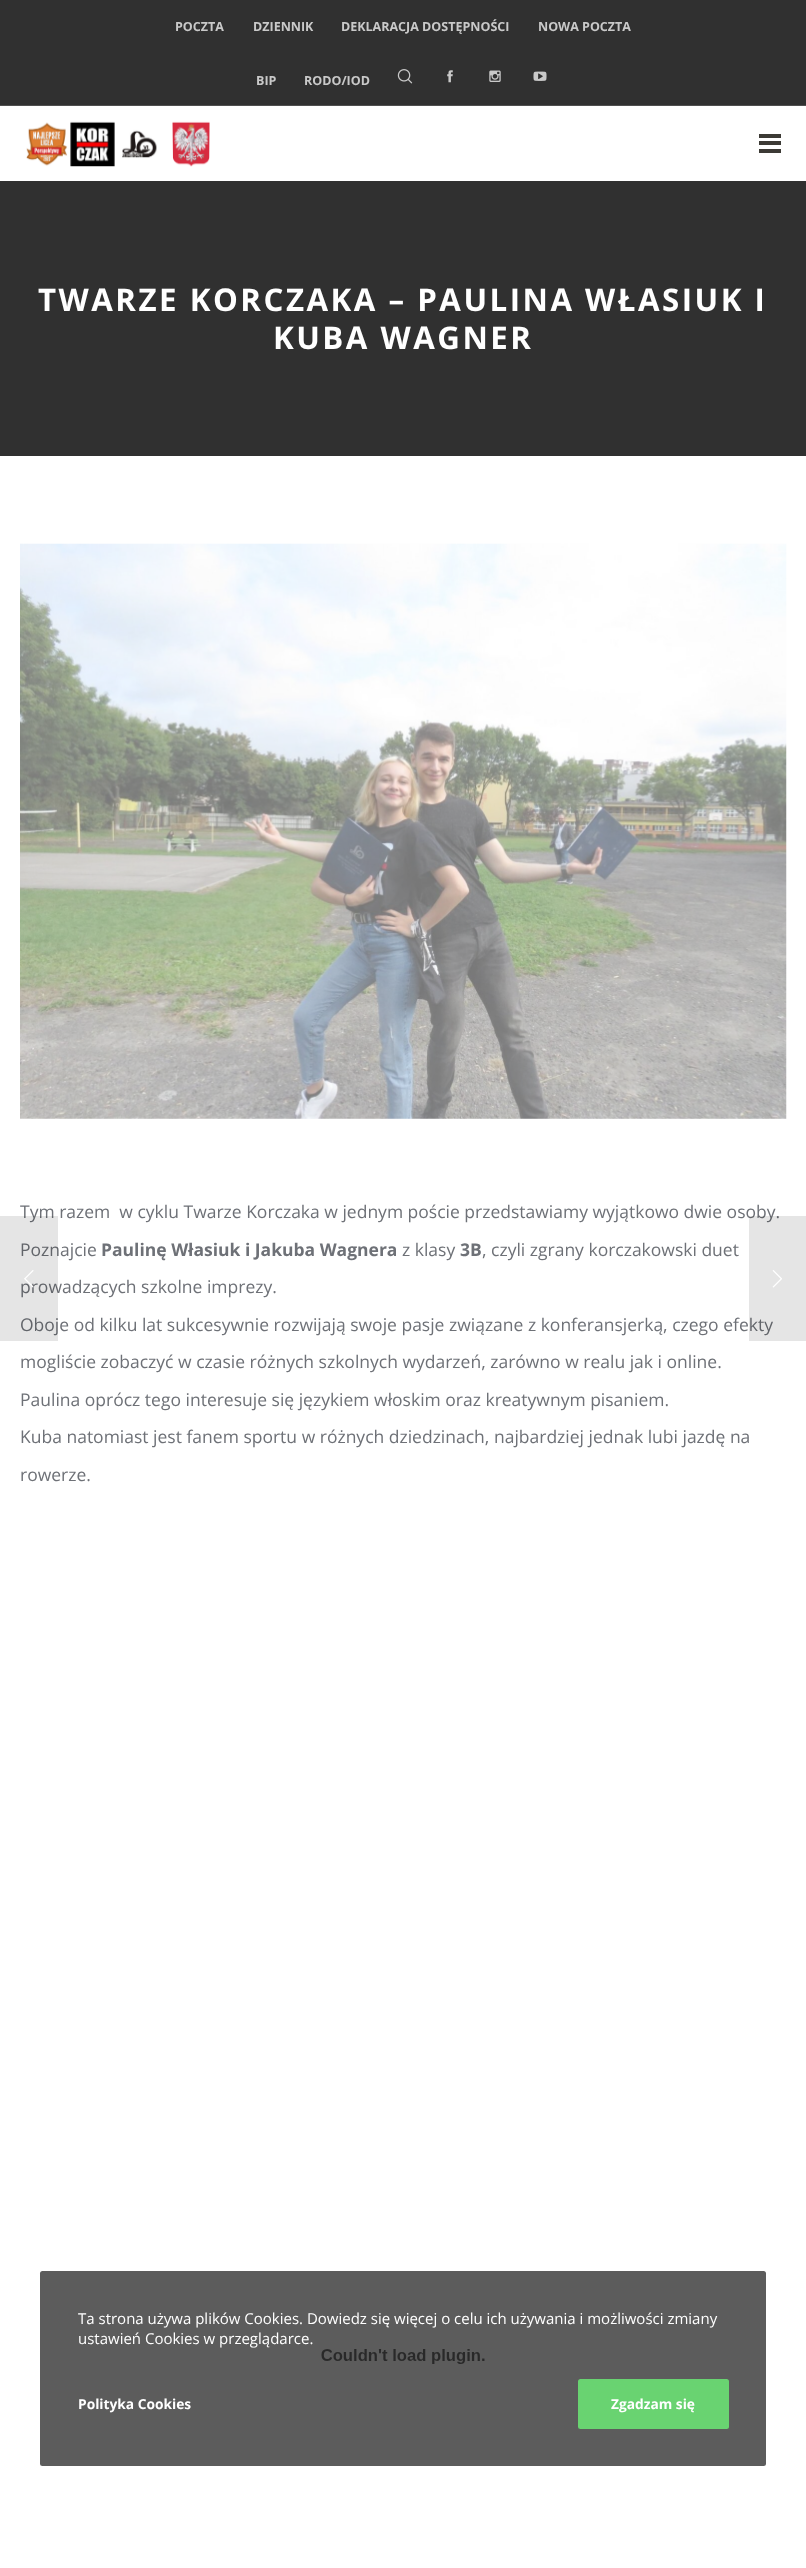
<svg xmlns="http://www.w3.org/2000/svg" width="806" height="2568">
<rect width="100%" height="100%" fill="#fff"/>
<rect width="806" height="105" fill="#303030"/>
<rect y="105" width="806" height="1" fill="#4f4f4f"/>
<text x="175" y="31" style="font-family:Open Sans;font-size:12.5px;font-weight:bold;fill:#c9c9c9">POCZTA</text>
<text x="253" y="31" style="font-family:Open Sans;font-size:12.5px;font-weight:bold;fill:#c9c9c9">DZIENNIK</text>
<text x="341" y="31" style="font-family:Open Sans;font-size:12.5px;font-weight:bold;fill:#c9c9c9">DEKLARACJA DOSTĘPNOŚCI</text>
<text x="538" y="31" style="font-family:Open Sans;font-size:12.5px;font-weight:bold;fill:#c9c9c9">NOWA POCZTA</text>
<text x="256" y="85" style="font-family:Open Sans;font-size:12.5px;font-weight:bold;fill:#c9c9c9">BIP</text>
<text x="304" y="85" style="font-family:Open Sans;font-size:12.5px;font-weight:bold;fill:#c9c9c9">RODO/IOD</text>
<image x="397" y="69" width="16" height="15" href="media/1.png"/>
<image x="447" y="70" width="6" height="13" href="media/2.png"/>
<image x="489" y="70" width="12" height="12" href="media/3.png"/>
<image x="533" y="71" width="14" height="10" href="media/4.png"/>
<image x="26" y="121" width="184" height="46" href="media/5.png"/>
<rect x="759" y="134" width="22" height="4" fill="#3c3a35"/>
<rect x="759" y="141" width="22" height="4" fill="#3c3a35"/>
<rect x="759" y="149" width="22" height="4" fill="#3c3a35"/>
<rect y="181" width="806" height="275" fill="#303030"/>
<text x="38" y="311" style="font-family:Open Sans;font-size:31.25px;font-weight:bold;letter-spacing:2.5px;fill:#fff">TWARZE KORCZAKA – PAULINA WŁASIUK I</text>
<text x="273" y="349" style="font-family:Open Sans;font-size:31.25px;font-weight:bold;letter-spacing:2.5px;fill:#fff">KUBA WAGNER</text>
<image x="20" y="543" width="767" height="576" href="media/6.png"/>
<text x="20" y="1218" style="font-family:Open Sans;font-size:17.5px;fill:#6e7177" xml:space="preserve">Tym razem  w cyklu Twarze Korczaka w jednym poście przedstawiamy wyjątkowo dwie osoby.</text>
<text x="20" y="1256" style="font-family:Open Sans;font-size:17.5px;fill:#6e7177">Poznajcie</text>
<text x="101" y="1256" style="font-family:Open Sans;font-size:17.5px;font-weight:bold;fill:#6e7177">Paulinę Własiuk i Jakuba Wagnera</text>
<text x="402" y="1256" style="font-family:Open Sans;font-size:17.5px;fill:#6e7177">z klasy</text>
<text x="460" y="1256" style="font-family:Open Sans;font-size:17.5px;font-weight:bold;fill:#6e7177">3B</text>
<text x="482" y="1256" style="font-family:Open Sans;font-size:17.5px;fill:#6e7177">, czyli zgrany korczakowski duet</text>
<text x="20" y="1293" style="font-family:Open Sans;font-size:17.5px;fill:#6e7177">prowadzących szkolne imprezy.</text>
<text x="20" y="1331" style="font-family:Open Sans;font-size:17.5px;fill:#6e7177">Oboje od kilku lat sukcesywnie rozwijają swoje pasje związane z konferansjerką, czego efekty</text>
<text x="20" y="1368" style="font-family:Open Sans;font-size:17.5px;fill:#6e7177">mogliście zobaczyć w czasie różnych szkolnych wydarzeń, zarówno w realu jak i online.</text>
<text x="20" y="1406" style="font-family:Open Sans;font-size:17.5px;fill:#6e7177">Paulina oprócz tego interesuje się językiem włoskim oraz kreatywnym pisaniem.</text>
<text x="20" y="1443" style="font-family:Open Sans;font-size:17.5px;fill:#6e7177">Kuba natomiast jest fanem sportu w różnych dziedzinach, najbardziej jednak lubi jazdę na</text>
<text x="20" y="1481" style="font-family:Open Sans;font-size:17.5px;fill:#6e7177">rowerze.</text>
<image x="321" y="2349" width="164" height="15" href="media/7.png"/>
<rect y="1216" width="58" height="125" fill="#0000001a"/>
<image x="24" y="1270" width="10" height="18" href="media/8.png"/>
<rect x="749" y="1216" width="57" height="125" fill="#0000001a"/>
<image x="772" y="1270" width="10" height="18" href="media/9.png"/>
<rect x="40" y="2271" width="726" height="195" rx="2.5" fill="#000000a3"/>
<text x="78" y="2324" style="font-family:Open Sans;font-size:15px;fill:#fff">Ta strona używa plików Cookies. Dowiedz się więcej o celu ich używania i możliwości zmiany</text>
<text x="78" y="2344" style="font-family:Open Sans;font-size:15px;fill:#fff">ustawień Cookies w przeglądarce.</text>
<text x="78" y="2409" style="font-family:Open Sans;font-size:13.75px;font-weight:bold;fill:#fff">Polityka Cookies</text>
<rect x="578" y="2379" width="151" height="50" rx="2.5" fill="#69d371"/>
<text x="611" y="2409" style="font-family:Open Sans;font-size:13.75px;font-weight:bold;fill:#fff">Zgadzam się</text>
</svg>
